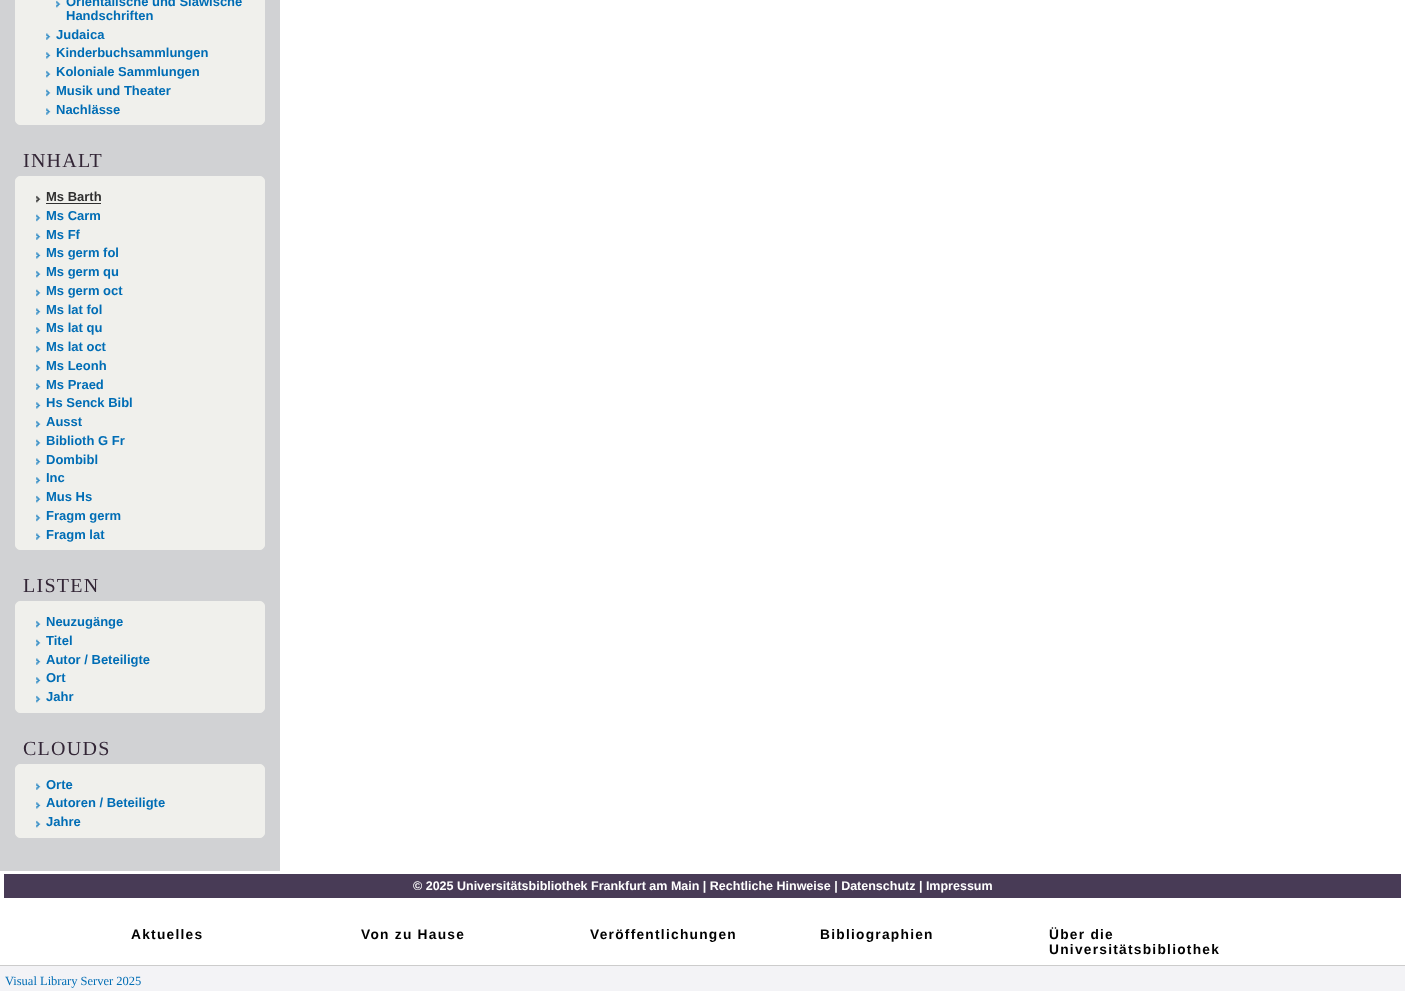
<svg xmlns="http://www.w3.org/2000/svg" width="1405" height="991">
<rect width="100%" height="100%" fill="#fff"/>
<rect width="280" height="871" fill="#d1d2d4"/>
<rect x="15.5" y="-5.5" width="249" height="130" rx="4.5" fill="#f0f0ec" stroke="#f0f0ec"/>
<image x="56" y="0" width="5" height="8" href="media/1.png"/>
<text x="66" y="6" style="font-family:Liberation Sans;font-size:13px;font-weight:bold;fill:#006db5">Orientalische und Slawische</text>
<text x="66" y="20" style="font-family:Liberation Sans;font-size:13px;font-weight:bold;fill:#006db5">Handschriften</text>
<image x="46" y="33" width="5" height="7" href="media/2.png"/>
<text x="56" y="39" style="font-family:Liberation Sans;font-size:13px;font-weight:bold;fill:#006db5">Judaica</text>
<image x="46" y="52" width="5" height="7" href="media/3.png"/>
<text x="56" y="57" style="font-family:Liberation Sans;font-size:13px;font-weight:bold;fill:#006db5">Kinderbuchsammlungen</text>
<image x="46" y="70" width="5" height="8" href="media/1.png"/>
<text x="56" y="76" style="font-family:Liberation Sans;font-size:13px;font-weight:bold;fill:#006db5">Koloniale Sammlungen</text>
<image x="46" y="89" width="5" height="8" href="media/4.png"/>
<text x="56" y="95" style="font-family:Liberation Sans;font-size:13px;font-weight:bold;fill:#006db5">Musik und Theater</text>
<image x="46" y="108" width="5" height="7" href="media/2.png"/>
<text x="56" y="114" style="font-family:Liberation Sans;font-size:13px;font-weight:bold;fill:#006db5">Nachlässe</text>
<text x="23" y="167" style="font-family:Liberation Serif;font-size:20px;letter-spacing:1.25px;fill:#332636">INHALT</text>
<rect x="15.5" y="176.5" width="249" height="373" rx="4.5" fill="#f0f0ec" stroke="#f0f0ec"/>
<image x="36" y="195" width="5" height="8" href="media/5.png"/>
<text x="46" y="201" style="font-family:Liberation Sans;font-size:13px;font-weight:bold;fill:#303030">Ms Barth</text>
<rect x="46" y="203" width="55" height="1" fill="#303030"/>
<image x="36" y="214" width="5" height="8" href="media/4.png"/>
<text x="46" y="220" style="font-family:Liberation Sans;font-size:13px;font-weight:bold;fill:#006db5">Ms Carm</text>
<image x="36" y="233" width="5" height="7" href="media/2.png"/>
<text x="46" y="239" style="font-family:Liberation Sans;font-size:13px;font-weight:bold;fill:#006db5">Ms Ff</text>
<image x="36" y="252" width="5" height="7" href="media/3.png"/>
<text x="46" y="257" style="font-family:Liberation Sans;font-size:13px;font-weight:bold;fill:#006db5">Ms germ fol</text>
<image x="36" y="270" width="5" height="8" href="media/1.png"/>
<text x="46" y="276" style="font-family:Liberation Sans;font-size:13px;font-weight:bold;fill:#006db5">Ms germ qu</text>
<image x="36" y="289" width="5" height="8" href="media/4.png"/>
<text x="46" y="295" style="font-family:Liberation Sans;font-size:13px;font-weight:bold;fill:#006db5">Ms germ oct</text>
<image x="36" y="308" width="5" height="7" href="media/2.png"/>
<text x="46" y="314" style="font-family:Liberation Sans;font-size:13px;font-weight:bold;fill:#006db5">Ms lat fol</text>
<image x="36" y="327" width="5" height="7" href="media/3.png"/>
<text x="46" y="332" style="font-family:Liberation Sans;font-size:13px;font-weight:bold;fill:#006db5">Ms lat qu</text>
<image x="36" y="345" width="5" height="8" href="media/1.png"/>
<text x="46" y="351" style="font-family:Liberation Sans;font-size:13px;font-weight:bold;fill:#006db5">Ms lat oct</text>
<image x="36" y="364" width="5" height="8" href="media/4.png"/>
<text x="46" y="370" style="font-family:Liberation Sans;font-size:13px;font-weight:bold;fill:#006db5">Ms Leonh</text>
<image x="36" y="383" width="5" height="7" href="media/2.png"/>
<text x="46" y="389" style="font-family:Liberation Sans;font-size:13px;font-weight:bold;fill:#006db5">Ms Praed</text>
<image x="36" y="402" width="5" height="7" href="media/3.png"/>
<text x="46" y="407" style="font-family:Liberation Sans;font-size:13px;font-weight:bold;fill:#006db5">Hs Senck Bibl</text>
<image x="36" y="420" width="5" height="8" href="media/1.png"/>
<text x="46" y="426" style="font-family:Liberation Sans;font-size:13px;font-weight:bold;fill:#006db5">Ausst</text>
<image x="36" y="439" width="5" height="8" href="media/4.png"/>
<text x="46" y="445" style="font-family:Liberation Sans;font-size:13px;font-weight:bold;fill:#006db5">Biblioth G Fr</text>
<image x="36" y="458" width="5" height="7" href="media/2.png"/>
<text x="46" y="464" style="font-family:Liberation Sans;font-size:13px;font-weight:bold;fill:#006db5">Dombibl</text>
<image x="36" y="477" width="5" height="7" href="media/3.png"/>
<text x="46" y="482" style="font-family:Liberation Sans;font-size:13px;font-weight:bold;fill:#006db5">Inc</text>
<image x="36" y="495" width="5" height="8" href="media/1.png"/>
<text x="46" y="501" style="font-family:Liberation Sans;font-size:13px;font-weight:bold;fill:#006db5">Mus Hs</text>
<image x="36" y="514" width="5" height="8" href="media/4.png"/>
<text x="46" y="520" style="font-family:Liberation Sans;font-size:13px;font-weight:bold;fill:#006db5">Fragm germ</text>
<image x="36" y="533" width="5" height="7" href="media/2.png"/>
<text x="46" y="539" style="font-family:Liberation Sans;font-size:13px;font-weight:bold;fill:#006db5">Fragm lat</text>
<text x="23" y="592" style="font-family:Liberation Serif;font-size:20px;letter-spacing:1.25px;fill:#332636">LISTEN</text>
<rect x="15.5" y="601.5" width="249" height="111" rx="4.5" fill="#f0f0ec" stroke="#f0f0ec"/>
<image x="36" y="620" width="5" height="8" href="media/1.png"/>
<text x="46" y="626" style="font-family:Liberation Sans;font-size:13px;font-weight:bold;fill:#006db5">Neuzugänge</text>
<image x="36" y="639" width="5" height="8" href="media/4.png"/>
<text x="46" y="645" style="font-family:Liberation Sans;font-size:13px;font-weight:bold;fill:#006db5">Titel</text>
<image x="36" y="658" width="5" height="7" href="media/2.png"/>
<text x="46" y="664" style="font-family:Liberation Sans;font-size:13px;font-weight:bold;fill:#006db5">Autor / Beteiligte</text>
<image x="36" y="677" width="5" height="7" href="media/3.png"/>
<text x="46" y="682" style="font-family:Liberation Sans;font-size:13px;font-weight:bold;fill:#006db5">Ort</text>
<image x="36" y="695" width="5" height="8" href="media/1.png"/>
<text x="46" y="701" style="font-family:Liberation Sans;font-size:13px;font-weight:bold;fill:#006db5">Jahr</text>
<text x="23" y="755" style="font-family:Liberation Serif;font-size:20px;letter-spacing:1.25px;fill:#332636">CLOUDS</text>
<rect x="15.5" y="764.5" width="249" height="73" rx="4.5" fill="#f0f0ec" stroke="#f0f0ec"/>
<image x="36" y="783" width="5" height="7" href="media/2.png"/>
<text x="46" y="789" style="font-family:Liberation Sans;font-size:13px;font-weight:bold;fill:#006db5">Orte</text>
<image x="36" y="802" width="5" height="7" href="media/3.png"/>
<text x="46" y="807" style="font-family:Liberation Sans;font-size:13px;font-weight:bold;fill:#006db5">Autoren / Beteiligte</text>
<image x="36" y="820" width="5" height="8" href="media/1.png"/>
<text x="46" y="826" style="font-family:Liberation Sans;font-size:13px;font-weight:bold;fill:#006db5">Jahre</text>
<rect x="4" y="874" width="1397" height="24" fill="#483b56"/>
<text x="413" y="890" style="font-family:Liberation Sans;font-size:12.5px;font-weight:bold;fill:#fff">© 2025 Universitätsbibliothek Frankfurt am Main | Rechtliche Hinweise | Datenschutz | Impressum</text>
<text x="131" y="939" style="font-family:Liberation Sans;font-size:13.75px;font-weight:bold;letter-spacing:1.25px;fill:#000">Aktuelles</text>
<text x="361" y="939" style="font-family:Liberation Sans;font-size:13.75px;font-weight:bold;letter-spacing:1.25px;fill:#000">Von zu Hause</text>
<text x="590" y="939" style="font-family:Liberation Sans;font-size:13.75px;font-weight:bold;letter-spacing:1.25px;fill:#000">Veröffentlichungen</text>
<text x="820" y="939" style="font-family:Liberation Sans;font-size:13.75px;font-weight:bold;letter-spacing:1.25px;fill:#000">Bibliographien</text>
<text x="1049" y="939" style="font-family:Liberation Sans;font-size:13.75px;font-weight:bold;letter-spacing:1.25px;fill:#000">Über die</text>
<text x="1049" y="954" style="font-family:Liberation Sans;font-size:13.75px;font-weight:bold;letter-spacing:1.25px;fill:#000">Universitätsbibliothek</text>
<rect y="966" width="1405" height="25" fill="#f3f3f6"/>
<rect y="965" width="1405" height="1" fill="#ccc"/>
<text x="5" y="985" style="font-family:Liberation Serif;font-size:12.5px;fill:#006db5">Visual Library Server 2025</text>
</svg>
